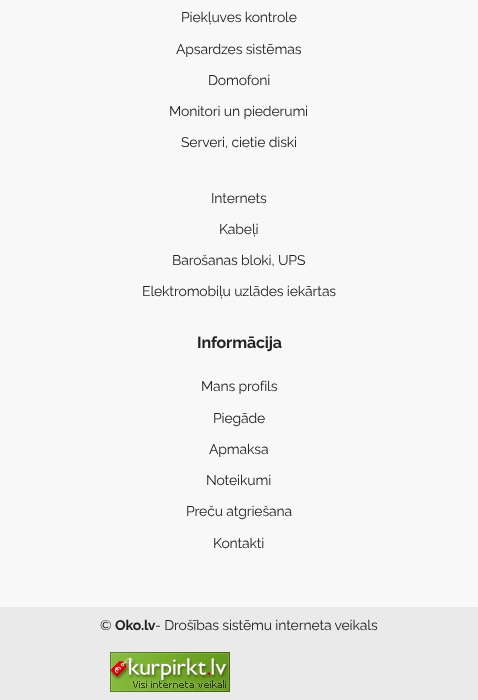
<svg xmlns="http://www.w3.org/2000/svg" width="478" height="700">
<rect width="100%" height="100%" fill="#f8f8f8"/>
<text x="181" y="22" style="font-family:Raleway;font-size:14px;letter-spacing:-0.15px;fill:#222">Piekļuves kontrole</text>
<text x="176" y="54" style="font-family:Raleway;font-size:14px;letter-spacing:-0.15px;fill:#222">Apsardzes sistēmas</text>
<text x="208" y="85" style="font-family:Raleway;font-size:14px;letter-spacing:-0.15px;fill:#222">Domofoni</text>
<text x="169" y="116" style="font-family:Raleway;font-size:14px;letter-spacing:-0.15px;fill:#222">Monitori un piederumi</text>
<text x="181" y="147" style="font-family:Raleway;font-size:14px;letter-spacing:-0.15px;fill:#222">Serveri, cietie diski</text>
<text x="211" y="203" style="font-family:Raleway;font-size:14px;letter-spacing:-0.15px;fill:#222">Internets</text>
<text x="219" y="234" style="font-family:Raleway;font-size:14px;letter-spacing:-0.15px;fill:#222">Kabeļi</text>
<text x="172" y="265" style="font-family:Raleway;font-size:14px;letter-spacing:-0.15px;fill:#222">Barošanas bloki, UPS</text>
<text x="142" y="296" style="font-family:Raleway;font-size:14px;letter-spacing:-0.15px;fill:#222">Elektromobiļu uzlādes iekārtas</text>
<text x="197" y="348" style="font-family:Raleway;font-size:16px;font-weight:bold;letter-spacing:-0.15px;fill:#222">Informācija</text>
<text x="201" y="391" style="font-family:Raleway;font-size:14px;letter-spacing:-0.15px;fill:#222">Mans profils</text>
<text x="213" y="423" style="font-family:Raleway;font-size:14px;letter-spacing:-0.15px;fill:#222">Piegāde</text>
<text x="209" y="454" style="font-family:Raleway;font-size:14px;letter-spacing:-0.15px;fill:#222">Apmaksa</text>
<text x="206" y="485" style="font-family:Raleway;font-size:14px;letter-spacing:-0.15px;fill:#222">Noteikumi</text>
<text x="186" y="516" style="font-family:Raleway;font-size:14px;letter-spacing:-0.15px;fill:#222">Preču atgriešana</text>
<text x="213" y="548" style="font-family:Raleway;font-size:14px;letter-spacing:-0.15px;fill:#222">Kontakti</text>
<rect y="607" width="478" height="93" fill="#eaeaea"/>
<text x="100" y="630" style="font-family:Raleway;font-size:14px;letter-spacing:-0.15px;fill:#222">©</text>
<text x="115" y="630" style="font-family:Raleway;font-size:14px;font-weight:bold;letter-spacing:-0.15px;fill:#222">Oko.lv</text>
<text x="155" y="630" style="font-family:Raleway;font-size:14px;letter-spacing:-0.15px;fill:#222">- Drošības sistēmu interneta veikals</text>
<image x="110" y="652" width="120" height="40" href="media/1.png"/>
</svg>
